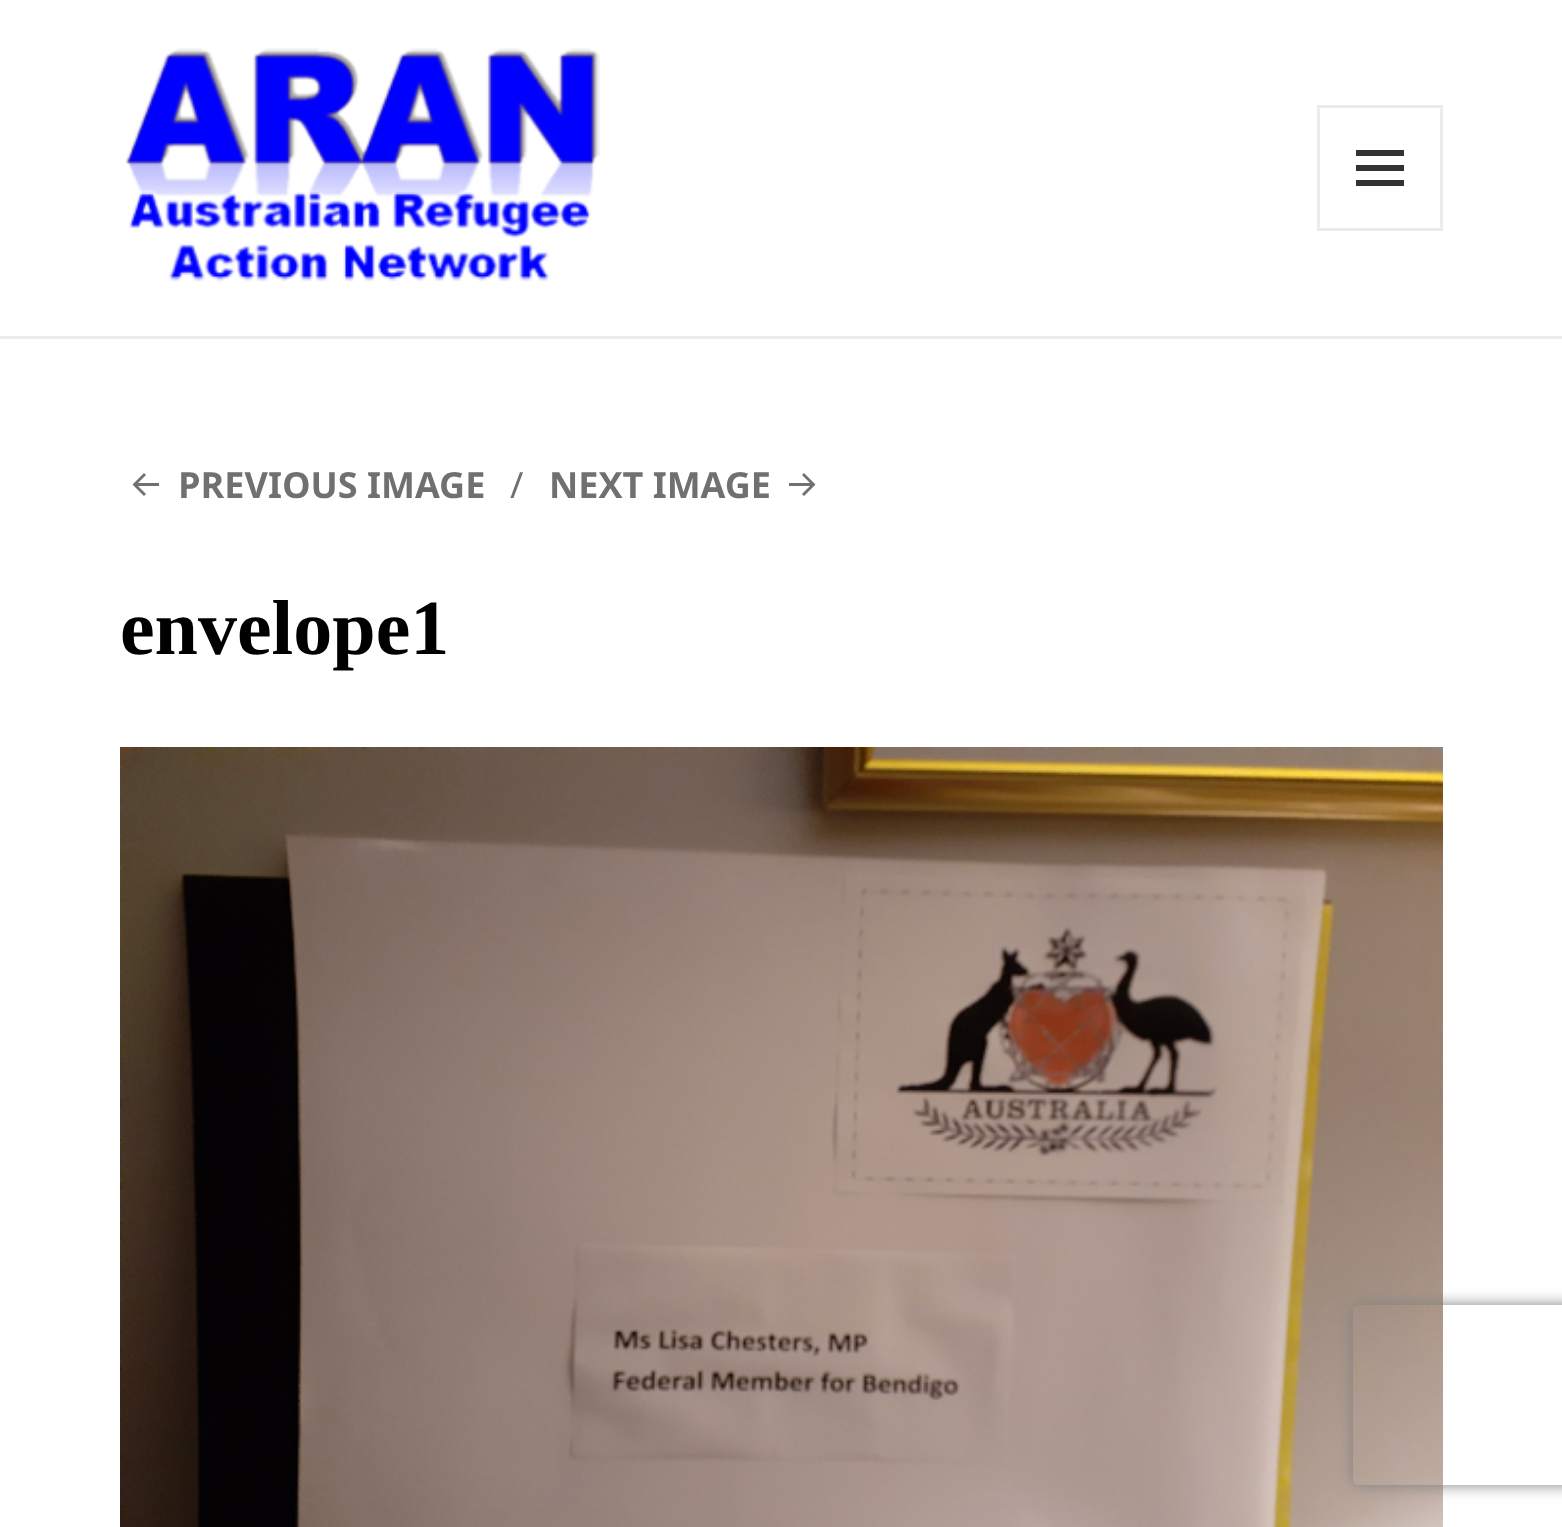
<svg xmlns="http://www.w3.org/2000/svg" width="1562" height="1527">
<defs>
<clipPath id="clip1"><path d="M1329 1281h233v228h-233zm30 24h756c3.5 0 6 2.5 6 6v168c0 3.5-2.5 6-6 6h-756c-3.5 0-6-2.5-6-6v-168c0-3.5 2.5-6 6-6z" clip-rule="evenodd"/></clipPath>
</defs>
<rect width="100%" height="100%" fill="#fff"/>
<rect y="336" width="1562" height="3" fill="#ebebeb"/>
<image x="125" y="48" width="475" height="234" href="media/1.png"/>
<rect x="1318.5" y="106.5" width="123" height="123" fill="none" stroke="#ebebeb" stroke-width="3"/>
<path d="M1356 186v-6h48v6zm0-36h48v6h-48zm0 21v-6h48v6z" fill="#333"/>
<path d="M144 473l2 2l-8 8h21v3h-21l8 8l-2 2l-11.5-11.5z" fill="#707070"/>
<text x="178" y="498" style="font-family:Noto Sans;font-size:36px;font-weight:bold;fill:#707070">PREVIOUS IMAGE</text>
<text x="510" y="498" style="font-family:Noto Sans;font-size:36px;fill:#707070">∕</text>
<text x="549" y="498" style="font-family:Noto Sans;font-size:36px;font-weight:bold;fill:#707070">NEXT IMAGE</text>
<path d="M804 473l11.5 11.5l-11.5 11.5l-2-2l8-8h-21v-3h21l-8-8z" fill="#707070"/>
<text x="120" y="654" style="font-family:Liberation Serif;font-size:78px;font-weight:bold;fill:#000">envelope1</text>
<image x="120" y="747" width="1323" height="780" href="media/2.png"/>
<g clip-path="url(#clip1)">
<rect x="1353" y="1305" width="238" height="180" rx="6" fill="#808080" filter="blur(7.5px)"/>
</g>
</svg>
